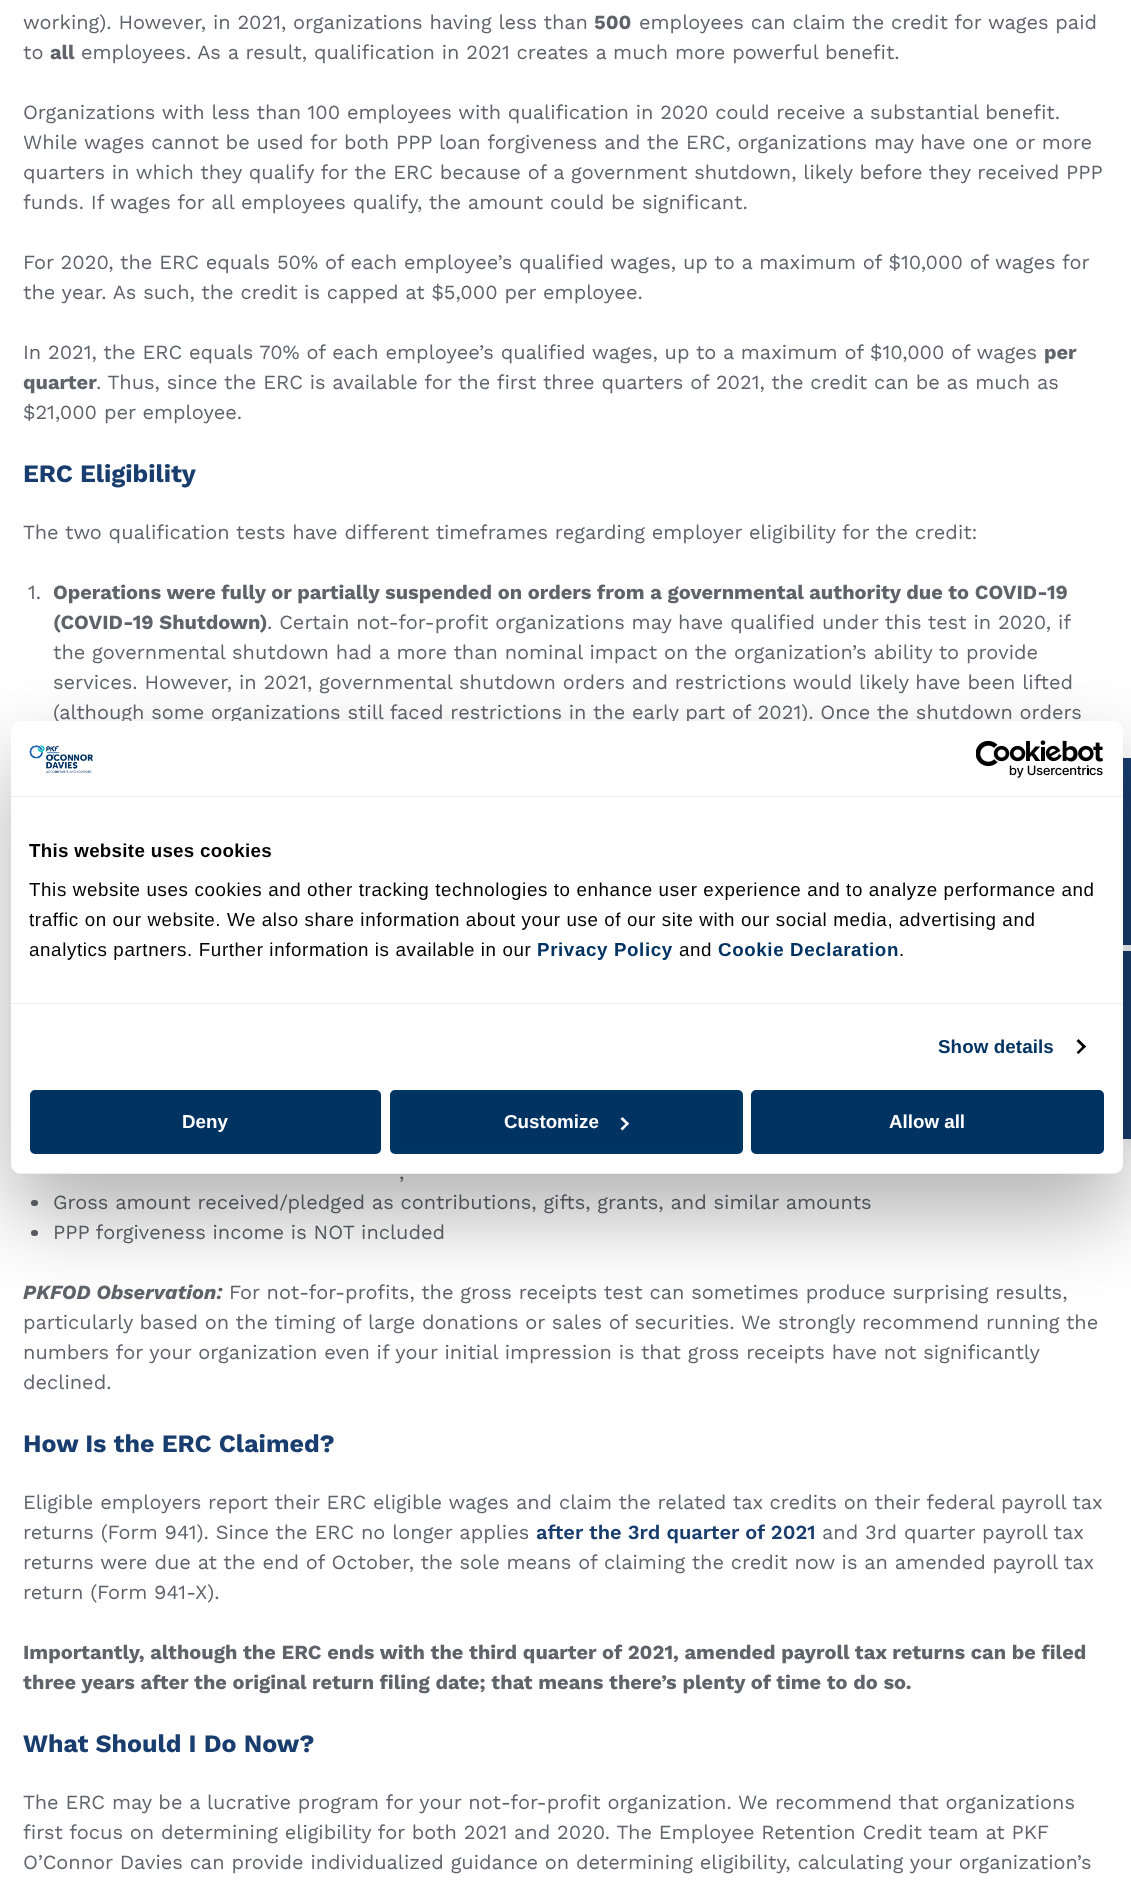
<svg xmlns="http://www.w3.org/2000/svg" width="1131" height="1895">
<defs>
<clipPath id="clip1"><rect x="11" y="721" width="1112" height="453" rx="10"/></clipPath>
</defs>
<rect width="100%" height="100%" fill="#fff"/>
<text x="23" y="29" style="font-family:Work Sans;font-size:20px;fill:#5f636a">working). However, in 2021, organizations having less than</text>
<text x="594" y="29" style="font-family:Work Sans;font-size:20px;font-weight:bold;fill:#5f636a">500</text>
<text x="639" y="29" style="font-family:Work Sans;font-size:20px;fill:#5f636a">employees can claim the credit for wages paid</text>
<text x="23" y="59" style="font-family:Work Sans;font-size:20px;fill:#5f636a">to</text>
<text x="50" y="59" style="font-family:Work Sans;font-size:20px;font-weight:bold;fill:#5f636a">all</text>
<text x="81" y="59" style="font-family:Work Sans;font-size:20px;fill:#5f636a">employees. As a result, qualification in 2021 creates a much more powerful benefit.</text>
<text x="23" y="119" style="font-family:Work Sans;font-size:20px;fill:#5f636a">Organizations with less than 100 employees with qualification in 2020 could receive a substantial benefit.</text>
<text x="23" y="149" style="font-family:Work Sans;font-size:20px;fill:#5f636a">While wages cannot be used for both PPP loan forgiveness and the ERC, organizations may have one or more</text>
<text x="23" y="179" style="font-family:Work Sans;font-size:20px;fill:#5f636a">quarters in which they qualify for the ERC because of a government shutdown, likely before they received PPP</text>
<text x="23" y="209" style="font-family:Work Sans;font-size:20px;fill:#5f636a">funds. If wages for all employees qualify, the amount could be significant.</text>
<text x="23" y="269" style="font-family:Work Sans;font-size:20px;fill:#5f636a">For 2020, the ERC equals 50% of each employee’s qualified wages, up to a maximum of $10,000 of wages for</text>
<text x="23" y="299" style="font-family:Work Sans;font-size:20px;fill:#5f636a">the year. As such, the credit is capped at $5,000 per employee.</text>
<text x="23" y="359" style="font-family:Work Sans;font-size:20px;fill:#5f636a">In 2021, the ERC equals 70% of each employee’s qualified wages, up to a maximum of $10,000 of wages</text>
<text x="1044" y="359" style="font-family:Work Sans;font-size:20px;font-weight:bold;fill:#5f636a">per</text>
<text x="23" y="389" style="font-family:Work Sans;font-size:20px;font-weight:bold;fill:#5f636a">quarter</text>
<text x="96" y="389" style="font-family:Work Sans;font-size:20px;fill:#5f636a">. Thus, since the ERC is available for the first three quarters of 2021, the credit can be as much as</text>
<text x="23" y="419" style="font-family:Work Sans;font-size:20px;fill:#5f636a">$21,000 per employee.</text>
<text x="23" y="482" style="font-family:Work Sans;font-size:25px;font-weight:bold;fill:#183d6e">ERC Eligibility</text>
<text x="23" y="539" style="font-family:Work Sans;font-size:20px;fill:#5f636a">The two qualification tests have different timeframes regarding employer eligibility for the credit:</text>
<text x="28" y="599" style="font-family:Work Sans;font-size:20px;fill:#5f636a">1.</text>
<text x="53" y="599" style="font-family:Work Sans;font-size:20px;font-weight:bold;fill:#5f636a">Operations were fully or partially suspended on orders from a governmental authority due to COVID-19</text>
<text x="53" y="629" style="font-family:Work Sans;font-size:20px;font-weight:bold;fill:#5f636a">(COVID-19 Shutdown)</text>
<text x="267" y="629" style="font-family:Work Sans;font-size:20px;fill:#5f636a">. Certain not-for-profit organizations may have qualified under this test in 2020, if</text>
<text x="53" y="659" style="font-family:Work Sans;font-size:20px;fill:#5f636a">the governmental shutdown had a more than nominal impact on the organization’s ability to provide</text>
<text x="53" y="689" style="font-family:Work Sans;font-size:20px;fill:#5f636a">services. However, in 2021, governmental shutdown orders and restrictions would likely have been lifted</text>
<text x="53" y="719" style="font-family:Work Sans;font-size:20px;fill:#5f636a">(although some organizations still faced restrictions in the early part of 2021). Once the shutdown orders</text>
<text x="399" y="1179" style="font-family:Work Sans;font-size:20px;fill:#5f636a">,</text>
<rect x="31" y="1200" width="7" height="6" rx="3" fill="#5f636a"/>
<text x="53" y="1209" style="font-family:Work Sans;font-size:20px;fill:#5f636a">Gross amount received/pledged as contributions, gifts, grants, and similar amounts</text>
<rect x="31" y="1230" width="7" height="6" rx="3" fill="#5f636a"/>
<text x="53" y="1239" style="font-family:Work Sans;font-size:20px;fill:#5f636a">PPP forgiveness income is NOT included</text>
<text x="23" y="1299" style="font-family:Work Sans;font-size:20px;font-weight:bold;font-style:italic;fill:#5f636a">PKFOD Observation:</text>
<text x="229" y="1299" style="font-family:Work Sans;font-size:20px;fill:#5f636a">For not-for-profits, the gross receipts test can sometimes produce surprising results,</text>
<text x="23" y="1329" style="font-family:Work Sans;font-size:20px;fill:#5f636a">particularly based on the timing of large donations or sales of securities. We strongly recommend running the</text>
<text x="23" y="1359" style="font-family:Work Sans;font-size:20px;fill:#5f636a">numbers for your organization even if your initial impression is that gross receipts have not significantly</text>
<text x="23" y="1389" style="font-family:Work Sans;font-size:20px;fill:#5f636a">declined.</text>
<text x="23" y="1452" style="font-family:Work Sans;font-size:25px;font-weight:bold;fill:#183d6e">How Is the ERC Claimed?</text>
<text x="23" y="1509" style="font-family:Work Sans;font-size:20px;fill:#5f636a">Eligible employers report their ERC eligible wages and claim the related tax credits on their federal payroll tax</text>
<text x="23" y="1539" style="font-family:Work Sans;font-size:20px;fill:#5f636a">returns (Form 941). Since the ERC no longer applies</text>
<text x="536" y="1539" style="font-family:Work Sans;font-size:20px;font-weight:600;fill:#183d6e">after the 3rd quarter of 2021</text>
<text x="822" y="1539" style="font-family:Work Sans;font-size:20px;fill:#5f636a">and 3rd quarter payroll tax</text>
<text x="23" y="1569" style="font-family:Work Sans;font-size:20px;fill:#5f636a">returns were due at the end of October, the sole means of claiming the credit now is an amended payroll tax</text>
<text x="23" y="1599" style="font-family:Work Sans;font-size:20px;fill:#5f636a">return (Form 941-X).</text>
<text x="23" y="1659" style="font-family:Work Sans;font-size:20px;font-weight:bold;fill:#5f636a">Importantly, although the ERC ends with the third quarter of 2021, amended payroll tax returns can be filed</text>
<text x="23" y="1689" style="font-family:Work Sans;font-size:20px;font-weight:bold;fill:#5f636a">three years after the original return filing date; that means there’s plenty of time to do so.</text>
<text x="23" y="1752" style="font-family:Work Sans;font-size:25px;font-weight:bold;fill:#183d6e">What Should I Do Now?</text>
<text x="23" y="1809" style="font-family:Work Sans;font-size:20px;fill:#5f636a">The ERC may be a lucrative program for your not-for-profit organization. We recommend that organizations</text>
<text x="23" y="1839" style="font-family:Work Sans;font-size:20px;fill:#5f636a">first focus on determining eligibility for both 2021 and 2020. The Employee Retention Credit team at PKF</text>
<text x="23" y="1869" style="font-family:Work Sans;font-size:20px;fill:#5f636a">O’Connor Davies can provide individualized guidance on determining eligibility, calculating your organization’s</text>
<rect x="1131" y="763" width="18" height="187" fill="#00000026" filter="blur(6px)"/>
<rect x="1123" y="758" width="8" height="187" fill="#183d6e"/>
<rect x="1131" y="956" width="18" height="188" fill="#00000026" filter="blur(6px)"/>
<rect x="1123" y="951" width="8" height="188" fill="#183d6e"/>
<rect x="11" y="761" width="1112" height="453" rx="10" fill="#0000004d" filter="blur(42.5px)"/>
<rect x="11" y="721" width="1112" height="453" rx="10" fill="#fff"/>
<rect x="11" y="796" width="1112" height="1" fill="#eee"/>
<image x="29" y="745" width="64" height="28" href="media/1.png"/>
<image x="976" y="740" width="127" height="38" href="media/2.png"/>
<rect x="11" y="1003" width="1112" height="1" fill="#eee"/>
<text x="29" y="857" style="font-family:Liberation Sans;font-size:18.75px;font-weight:bold;letter-spacing:0.3px;fill:#000">This website uses cookies</text>
<text x="29" y="896" style="font-family:Liberation Sans;font-size:18.75px;letter-spacing:0.62px;fill:#000">This website uses cookies and other tracking technologies to enhance user experience and to analyze performance and</text>
<text x="29" y="926" style="font-family:Liberation Sans;font-size:18.75px;letter-spacing:0.62px;fill:#000">traffic on our website. We also share information about your use of our site with our social media, advertising and</text>
<text x="29" y="956" style="font-family:Liberation Sans;font-size:18.75px;letter-spacing:0.62px;fill:#000">analytics partners. Further information is available in our</text>
<text x="537" y="956" style="font-family:Liberation Sans;font-size:18.75px;font-weight:bold;letter-spacing:0.62px;fill:#003262">Privacy Policy</text>
<text x="679" y="956" style="font-family:Liberation Sans;font-size:18.75px;letter-spacing:0.62px;fill:#000">and</text>
<text x="718" y="956" style="font-family:Liberation Sans;font-size:18.75px;font-weight:bold;letter-spacing:0.62px;fill:#003262">Cookie Declaration</text>
<text x="899" y="956" style="font-family:Liberation Sans;font-size:18.75px;letter-spacing:0.62px;fill:#000">.</text>
<text x="938" y="1053" style="font-family:Liberation Sans;font-size:18.75px;font-weight:bold;letter-spacing:0.1px;fill:#003262">Show details</text>
<path d="M1078.5 1039l7.5 7.5l-2 2l-7.5-7.5z" fill="#000"/>
<path d="M1084 1045l2 1.5l-7.5 7.5l-2-1.5z" fill="#000"/>
<g clip-path="url(#clip1)">
<rect x="11" y="1173" width="1112" height="1" fill="#eee"/>
</g>
<rect x="31.5" y="1091.5" width="348" height="61" rx="3.5" fill="#003262" stroke="#003262" stroke-width="3"/>
<text x="182" y="1128" style="font-family:Liberation Sans;font-size:18.75px;font-weight:bold;fill:#fff">Deny</text>
<rect x="391.5" y="1091.5" width="350" height="61" rx="3.5" fill="#003262" stroke="#003762" stroke-width="3"/>
<text x="504" y="1128" style="font-family:Liberation Sans;font-size:18.75px;font-weight:bold;fill:#fff">Customize</text>
<path d="M622.5 1117l6.5 6.5l-1.5 2l-7-6.5z" fill="#fff"/>
<path d="M627.5 1122l1.5 1.5l-6.5 7l-2-2z" fill="#fff"/>
<rect x="752.5" y="1091.5" width="350" height="61" rx="3.5" fill="#003262" stroke="#003262" stroke-width="3"/>
<text x="889" y="1128" style="font-family:Liberation Sans;font-size:18.75px;font-weight:bold;fill:#fff">Allow all</text>
</svg>
